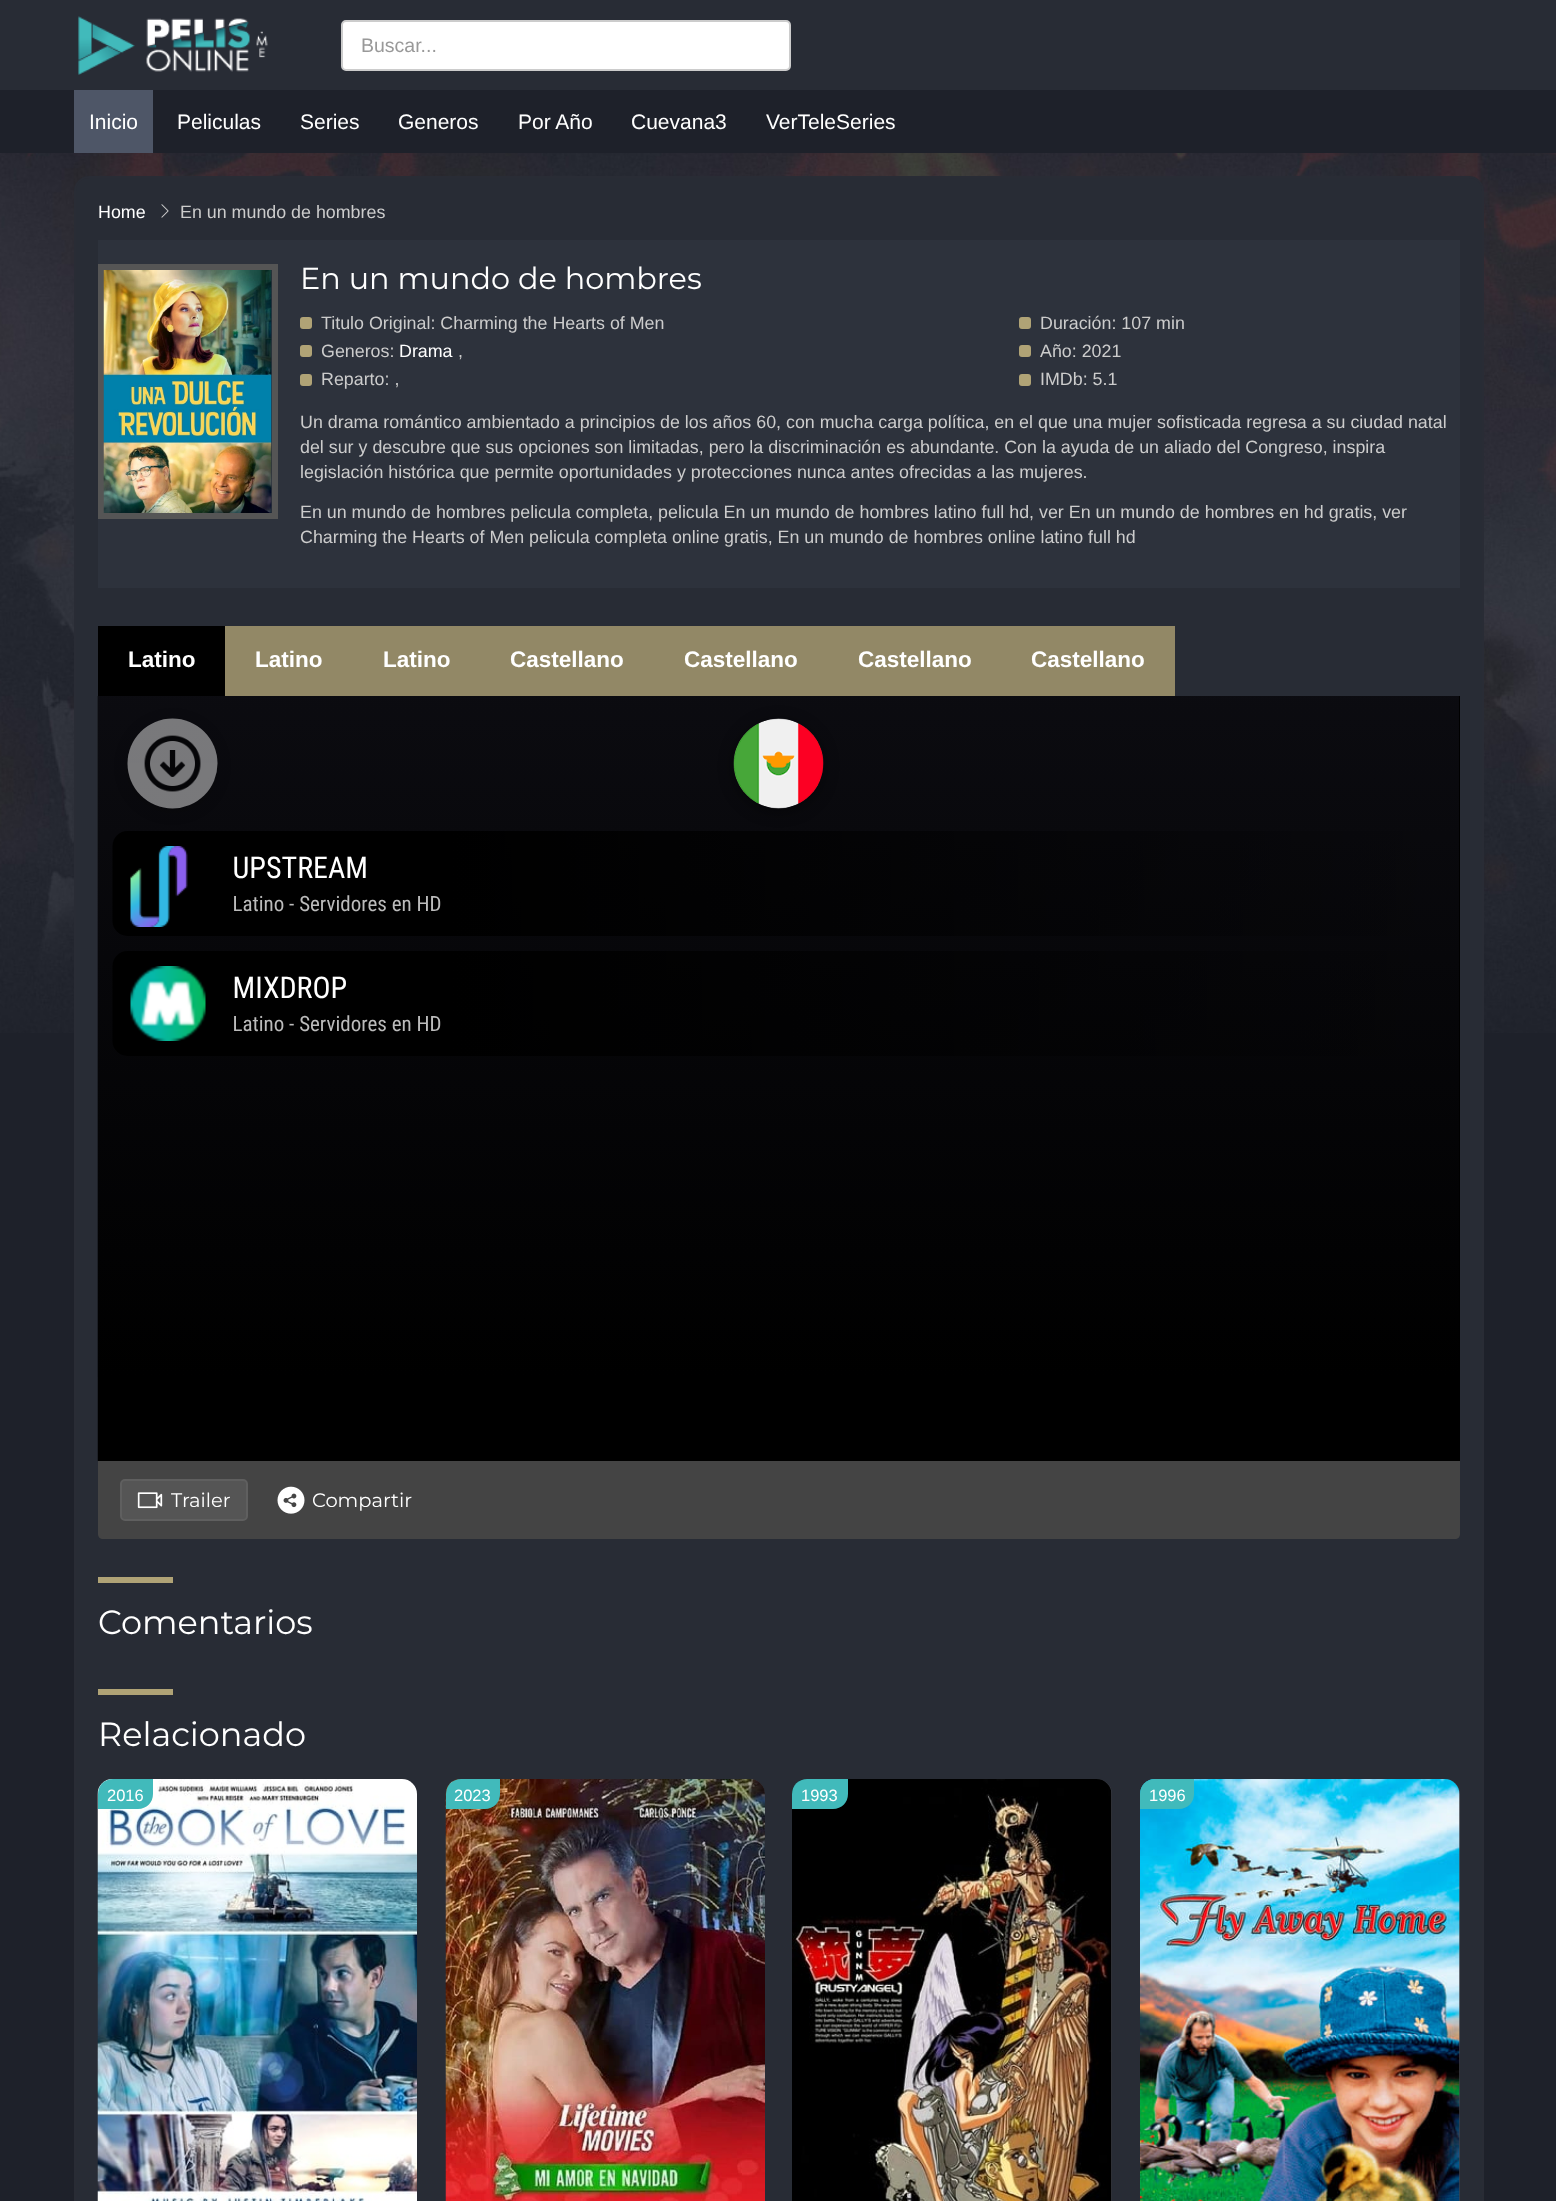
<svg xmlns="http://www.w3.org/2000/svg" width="1556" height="2201">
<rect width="100%" height="100%" fill="#1e212a"/>
<image x="0" y="153" width="1556" height="880" href="media/1.png"/>
<rect width="1556" height="90" fill="#282c35"/>
<image x="78" y="16" width="190" height="59" href="media/2.png"/>
<rect x="342" y="21" width="448" height="49" rx="4" fill="#fff" stroke="#ccc" stroke-width="2"/>
<text x="361" y="52" style="font-family:Liberation Sans;font-size:19.5px;fill:#999">Buscar...</text>
<rect x="74" y="90" width="79" height="63" fill="#4e5667"/>
<text x="89" y="129" style="font-family:Liberation Sans;font-size:21px;fill:#fff">Inicio</text>
<text x="177" y="129" style="font-family:Liberation Sans;font-size:21px;fill:#fff">Peliculas</text>
<text x="300" y="129" style="font-family:Liberation Sans;font-size:21px;fill:#fff">Series</text>
<text x="398" y="129" style="font-family:Liberation Sans;font-size:21px;fill:#fff">Generos</text>
<text x="518" y="129" style="font-family:Liberation Sans;font-size:21px;fill:#fff">Por Año</text>
<text x="631" y="129" style="font-family:Liberation Sans;font-size:21px;fill:#fff">Cuevana3</text>
<text x="766" y="129" style="font-family:Liberation Sans;font-size:21px;fill:#fff">VerTeleSeries</text>
<rect x="75" y="177" width="1408" height="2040" rx="14" fill="#282c35" stroke="#292c35" stroke-width="2"/>
<text x="98" y="218" style="font-family:Liberation Sans;font-size:17.85px;fill:#fff">Home</text>
<image x="161" y="204" width="8" height="14" href="media/3.png"/>
<text x="180" y="218" style="font-family:Liberation Sans;font-size:17.85px;fill:#ccc">En un mundo de hombres</text>
<rect x="98" y="240" width="1362" height="348" fill="#2d323c"/>
<rect x="101" y="267" width="174" height="249" fill="none" stroke="#555" stroke-width="6"/>
<image x="103" y="270" width="169" height="243" href="media/4.png"/>
<text x="300" y="289" style="font-family:Montserrat;font-size:30.3px;fill:#fff">En un mundo de hombres</text>
<rect x="300" y="317" width="12" height="12" rx="3" fill="#b0a376"/>
<text x="321" y="329" style="font-family:Liberation Sans;font-size:17.85px;fill:#ccc">Titulo Original: Charming the Hearts of Men</text>
<rect x="300" y="345" width="12" height="12" rx="3" fill="#b0a376"/>
<text x="321" y="357" style="font-family:Liberation Sans;font-size:17.85px;fill:#ccc">Generos:</text>
<text x="399" y="357" style="font-family:Liberation Sans;font-size:17.85px;fill:#fff">Drama</text>
<text x="458" y="357" style="font-family:Liberation Sans;font-size:17.85px;fill:#ccc">,</text>
<rect x="300" y="374" width="12" height="12" rx="3" fill="#b0a376"/>
<text x="321" y="385" style="font-family:Liberation Sans;font-size:17.85px;fill:#ccc">Reparto: ,</text>
<rect x="1019" y="317" width="12" height="12" rx="3" fill="#b0a376"/>
<text x="1040" y="329" style="font-family:Liberation Sans;font-size:17.85px;fill:#ccc">Duración: 107 min</text>
<rect x="1019" y="345" width="12" height="12" rx="3" fill="#b0a376"/>
<text x="1040" y="357" style="font-family:Liberation Sans;font-size:17.85px;fill:#ccc">Año: 2021</text>
<rect x="1019" y="374" width="12" height="12" rx="3" fill="#b0a376"/>
<text x="1040" y="385" style="font-family:Liberation Sans;font-size:17.85px;fill:#ccc">IMDb: 5.1</text>
<text x="300" y="428" style="font-family:Liberation Sans;font-size:17.85px;fill:#ccc">Un drama romántico ambientado a principios de los años 60, con mucha carga política, en el que una mujer sofisticada regresa a su ciudad natal</text>
<text x="300" y="453" style="font-family:Liberation Sans;font-size:17.85px;fill:#ccc">del sur y descubre que sus opciones son limitadas, pero la discriminación es abundante. Con la ayuda de un aliado del Congreso, inspira</text>
<text x="300" y="478" style="font-family:Liberation Sans;font-size:17.85px;fill:#ccc">legislación histórica que permite oportunidades y protecciones nunca antes ofrecidas a las mujeres.</text>
<text x="300" y="518" style="font-family:Liberation Sans;font-size:17.85px;fill:#ccc">En un mundo de hombres pelicula completa, pelicula En un mundo de hombres latino full hd, ver En un mundo de hombres en hd gratis, ver</text>
<text x="300" y="543" style="font-family:Liberation Sans;font-size:17.85px;fill:#ccc">Charming the Hearts of Men pelicula completa online</text>
<text x="724" y="543" style="font-family:Liberation Sans;font-size:17.85px;fill:#ccc">gratis, En un mundo de hombres online latino full hd</text>
<rect x="98" y="626" width="127" height="70" fill="#000"/>
<text x="128" y="667" style="font-family:Liberation Sans;font-size:22.5px;font-weight:bold;fill:#fff">Latino</text>
<rect x="225" y="626" width="950" height="70" fill="#928866"/>
<text x="255" y="667" style="font-family:Liberation Sans;font-size:22.5px;font-weight:bold;fill:#fff">Latino</text>
<text x="383" y="667" style="font-family:Liberation Sans;font-size:22.5px;font-weight:bold;fill:#fff">Latino</text>
<text x="510" y="667" style="font-family:Liberation Sans;font-size:22.5px;font-weight:bold;fill:#fff">Castellano</text>
<text x="684" y="667" style="font-family:Liberation Sans;font-size:22.5px;font-weight:bold;fill:#fff">Castellano</text>
<text x="858" y="667" style="font-family:Liberation Sans;font-size:22.5px;font-weight:bold;fill:#fff">Castellano</text>
<text x="1031" y="667" style="font-family:Liberation Sans;font-size:22.5px;font-weight:bold;fill:#fff">Castellano</text>
<rect x="1459" y="696" width="1" height="765" fill="#000"/>
<image x="97" y="696" width="1362" height="765" href="media/5.png"/>
<path d="M98 1461h1362v73c0 3-2 5-5 5h-1352c-3 0-5-2-5-5z" fill="#444"/>
<rect x="121" y="1480" width="126" height="40" rx="4" fill="#555" stroke="#5f5f5f" stroke-width="2"/>
<image x="137" y="1492" width="26" height="17" href="media/6.png"/>
<text x="171" y="1507" style="font-family:Montserrat;font-size:19.5px;fill:#fff">Trailer</text>
<image x="277" y="1486" width="28" height="28" href="media/7.png"/>
<text x="312" y="1507" style="font-family:Montserrat;font-size:19.5px;fill:#fff">Compartir</text>
<rect x="98" y="1577" width="75" height="6" fill="#b0a376"/>
<text x="98" y="1634" style="font-family:Montserrat;font-size:33.5px;fill:#fff">Comentarios</text>
<rect x="98" y="1689" width="75" height="6" fill="#b0a376"/>
<text x="98" y="1746" style="font-family:Montserrat;font-size:33.5px;fill:#fff">Relacionado</text>
<image x="97" y="1779" width="320" height="422" href="media/8.png"/>
<path d="M113 1779h40v15c0 8.5-6.5 15-15 15h-40v-15c0-8.5 6.5-15 15-15z" fill="#41babb"/>
<text x="107" y="1801" style="font-family:Liberation Sans;font-size:16.5px;fill:#fff">2016</text>
<rect x="446" y="1779" width="319" height="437" rx="15" fill="#3e4149"/>
<image x="445" y="1779" width="320" height="422" href="media/9.png"/>
<path d="M461 1779h39v15c0 8.5-6.5 15-15 15h-39v-15c0-8.5 6.5-15 15-15z" fill="#41babb"/>
<text x="454" y="1801" style="font-family:Liberation Sans;font-size:16.5px;fill:#fff">2023</text>
<rect x="792" y="1779" width="320" height="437" rx="15" fill="#3e4149"/>
<image x="792" y="1779" width="320" height="422" href="media/10.png"/>
<path d="M807 1779h41v15c0 8.5-6.5 15-15 15h-41v-15c0-8.5 6.5-15 15-15z" fill="#41babb"/>
<text x="801" y="1801" style="font-family:Liberation Sans;font-size:16.5px;fill:#fff">1993</text>
<rect x="1140" y="1779" width="320" height="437" rx="15" fill="#3e4149"/>
<image x="1140" y="1779" width="320" height="422" href="media/11.png"/>
<path d="M1155 1779h39v15c0 8.5-6.5 15-15 15h-39v-15c0-8.5 6.5-15 15-15z" fill="#41babb"/>
<text x="1149" y="1801" style="font-family:Liberation Sans;font-size:16.5px;fill:#fff">1996</text>
</svg>
